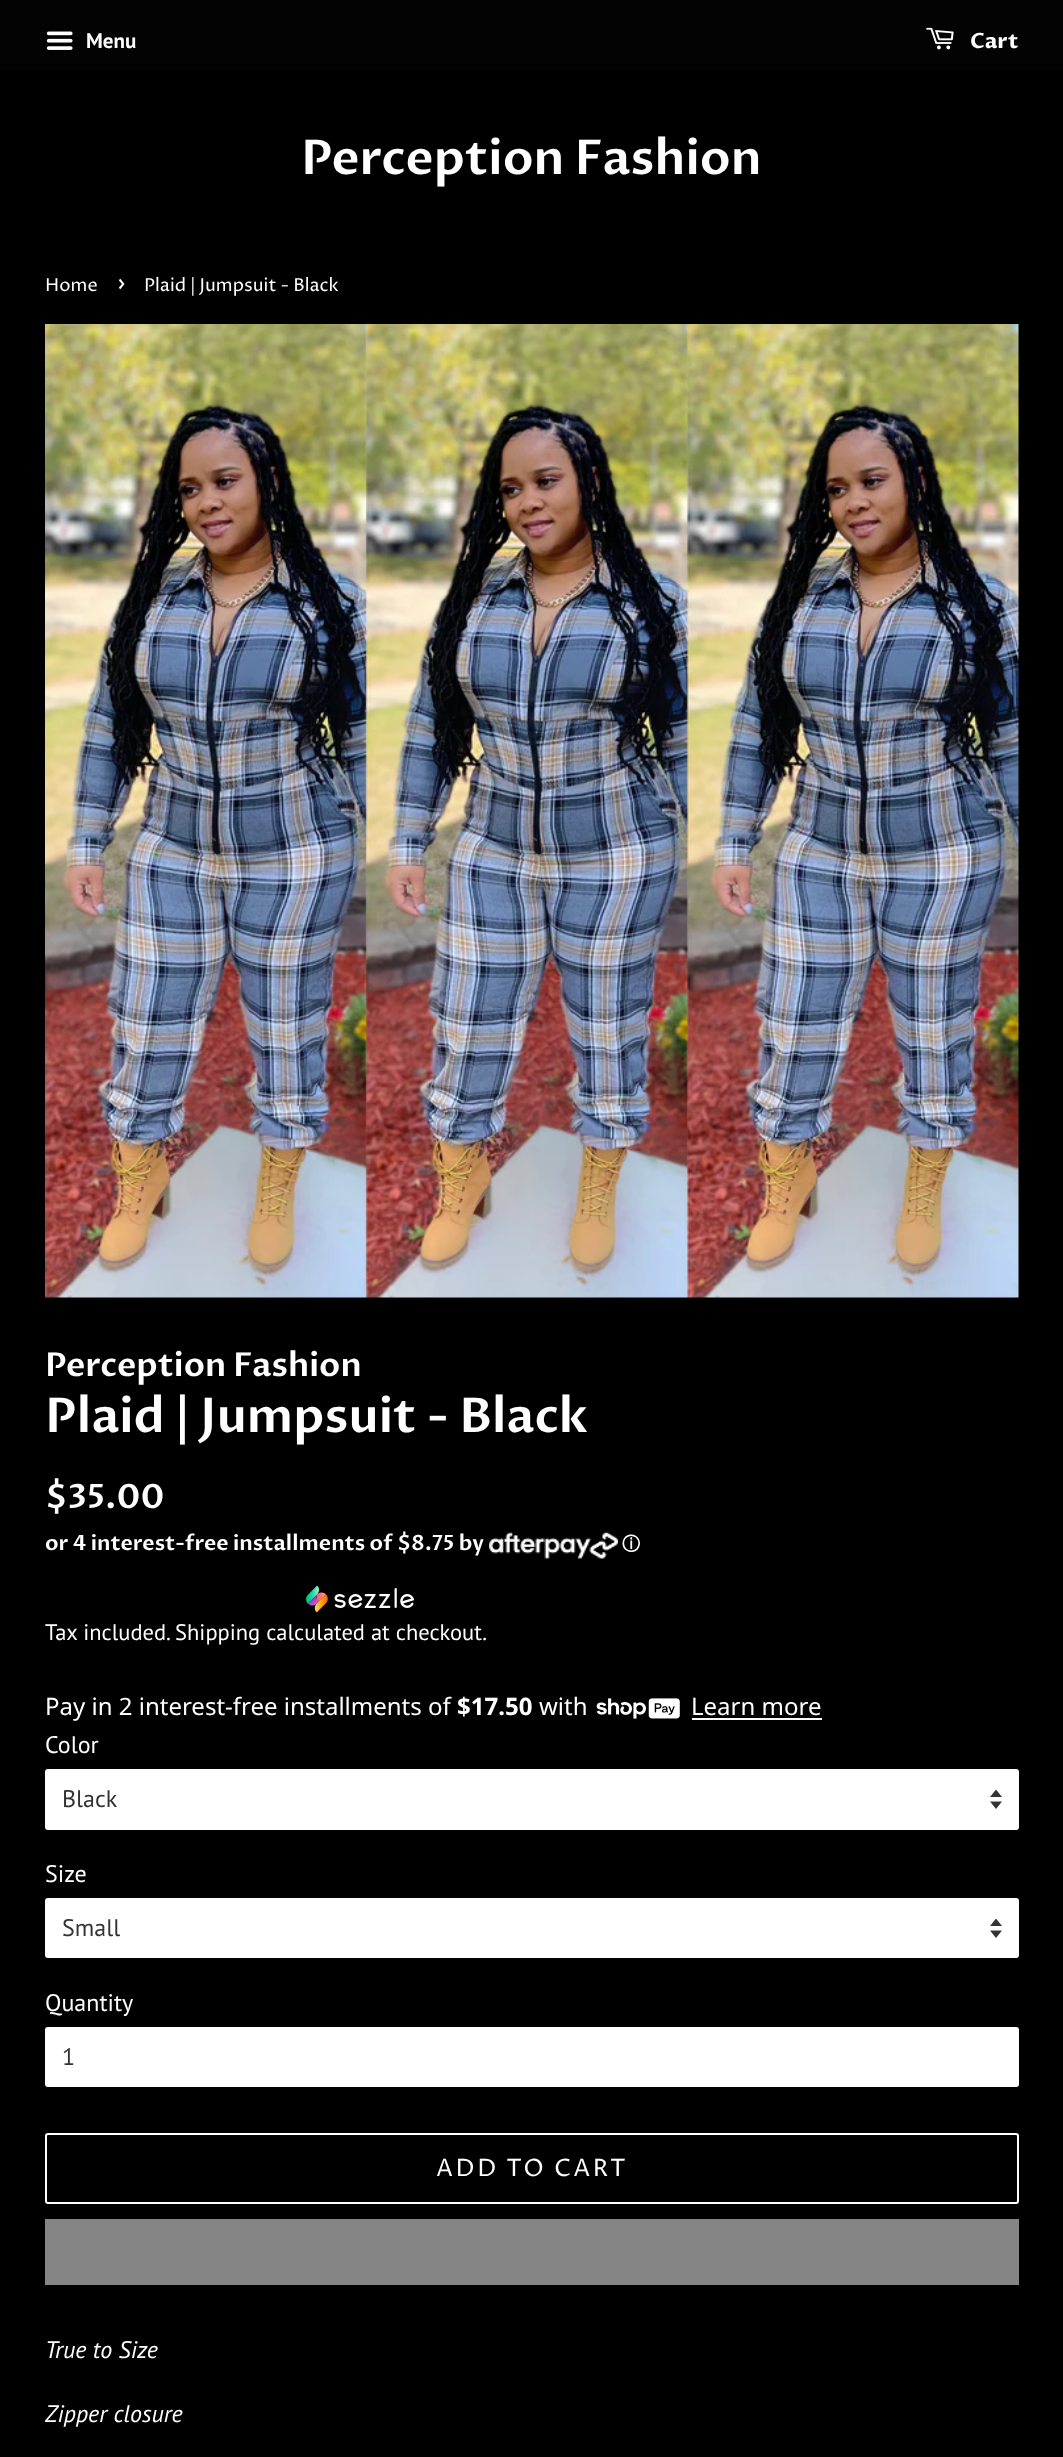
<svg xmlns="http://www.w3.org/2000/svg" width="1063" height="2457">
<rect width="100%" height="100%" fill="#000"/>
<rect width="1063" height="71" fill="#030303"/>
<image x="46" y="31" width="27" height="19" href="media/1.png"/>
<text x="86" y="48" style="font-family:PT Sans;font-size:21px;font-weight:bold;fill:#fff">Menu</text>
<image x="926" y="27" width="28" height="23" href="media/2.png"/>
<text x="970" y="48" style="font-family:Proza Libre;font-size:21px;font-weight:bold;fill:#fff">Cart</text>
<text x="301" y="174" style="font-family:Proza Libre;font-size:48px;font-weight:600;fill:#fff">Perception Fashion</text>
<text x="45" y="291" style="font-family:Proza Libre;font-size:18px;fill:#fff">Home</text>
<text x="117" y="291" style="font-family:Proza Libre;font-size:25px;fill:#fff">›</text>
<text x="144" y="291" style="font-family:Proza Libre;font-size:18px;fill:#fff">Plaid | Jumpsuit - Black</text>
<image x="45" y="324" width="974" height="974" href="media/3.png"/>
<text x="45" y="1376" style="font-family:Proza Libre;font-size:33px;font-weight:600;fill:#fff">Perception Fashion</text>
<text x="45" y="1432" style="font-family:Proza Libre;font-size:48px;font-weight:600;fill:#fff">Plaid | Jumpsuit - Black</text>
<text x="45" y="1508" style="font-family:Proza Libre;font-size:33.5px;font-weight:600;fill:#fff">$35.00</text>
<text x="45" y="1550" style="font-family:Proza Libre;font-size:21px;font-weight:600;fill:#fff">or 4 interest-free installments of $8.75 by</text>
<image x="489" y="1532" width="129" height="27" href="media/4.png"/>
<text x="622" y="1550" style="font-family:WenQuanYi Zen Hei;font-size:18px;font-weight:bold;fill:#fff">ⓘ</text>
<image x="306" y="1586" width="108" height="27" href="media/5.png"/>
<text x="45" y="1640" style="font-family:PT Sans;font-size:22.5px;fill:#fff">Tax included. Shipping calculated at checkout.</text>
<text x="45" y="1715" style="font-family:Noto Sans;font-size:24px;fill:#fff">Pay in 2 interest-free installments of</text>
<text x="457" y="1715" style="font-family:Noto Sans;font-size:24px;font-weight:bold;fill:#fff">$17.50</text>
<text x="539" y="1715" style="font-family:Noto Sans;font-size:24px;fill:#fff">with</text>
<image x="596" y="1698" width="84" height="21" href="media/6.png"/>
<text x="691" y="1715" style="font-family:Noto Sans;font-size:24px;fill:#fff">Learn more</text>
<rect x="692" y="1718" width="130" height="2" fill="#fff"/>
<text x="45" y="1753" style="font-family:PT Sans;font-size:24px;fill:#fff">Color</text>
<rect x="45" y="1769" width="974" height="61" rx="3" fill="#fff"/>
<image x="990" y="1790" width="12" height="19" href="media/7.png"/>
<rect x="46" y="1770" width="972" height="59" rx="2" fill="none" stroke="#ffffff26" stroke-width="2"/>
<text x="62" y="1807" style="font-family:PT Sans;font-size:24px;fill:#333">Black</text>
<text x="45" y="1882" style="font-family:PT Sans;font-size:24px;fill:#fff">Size</text>
<rect x="45" y="1898" width="974" height="60" rx="3" fill="#fff"/>
<image x="990" y="1919" width="12" height="19" href="media/7.png"/>
<rect x="46" y="1899" width="972" height="58" rx="2" fill="none" stroke="#ffffff26" stroke-width="2"/>
<text x="62" y="1936" style="font-family:PT Sans;font-size:24px;fill:#333">Small</text>
<text x="45" y="2011" style="font-family:PT Sans;font-size:24px;fill:#fff">Quantity</text>
<rect x="45" y="2027" width="974" height="60" rx="3" fill="#fff"/>
<rect x="46" y="2028" width="972" height="58" rx="2" fill="none" stroke="#ffffff26" stroke-width="2"/>
<text x="62" y="2065" style="font-family:PT Sans;font-size:24px;fill:#333">1</text>
<rect x="46" y="2134" width="972" height="69" rx="2" fill="none" stroke="#fff" stroke-width="2"/>
<text x="436" y="2176" style="font-family:Proza Libre;font-size:24px;letter-spacing:2.4px;fill:#fff">ADD TO CART</text>
<rect x="45" y="2219" width="974" height="66" fill="#858585"/>
<text x="45" y="2358" style="font-family:PT Sans;font-size:24px;font-style:italic;fill:#fff">True to Size</text>
<text x="45" y="2422" style="font-family:PT Sans;font-size:24px;font-style:italic;fill:#fff">Zipper closure</text>
</svg>
